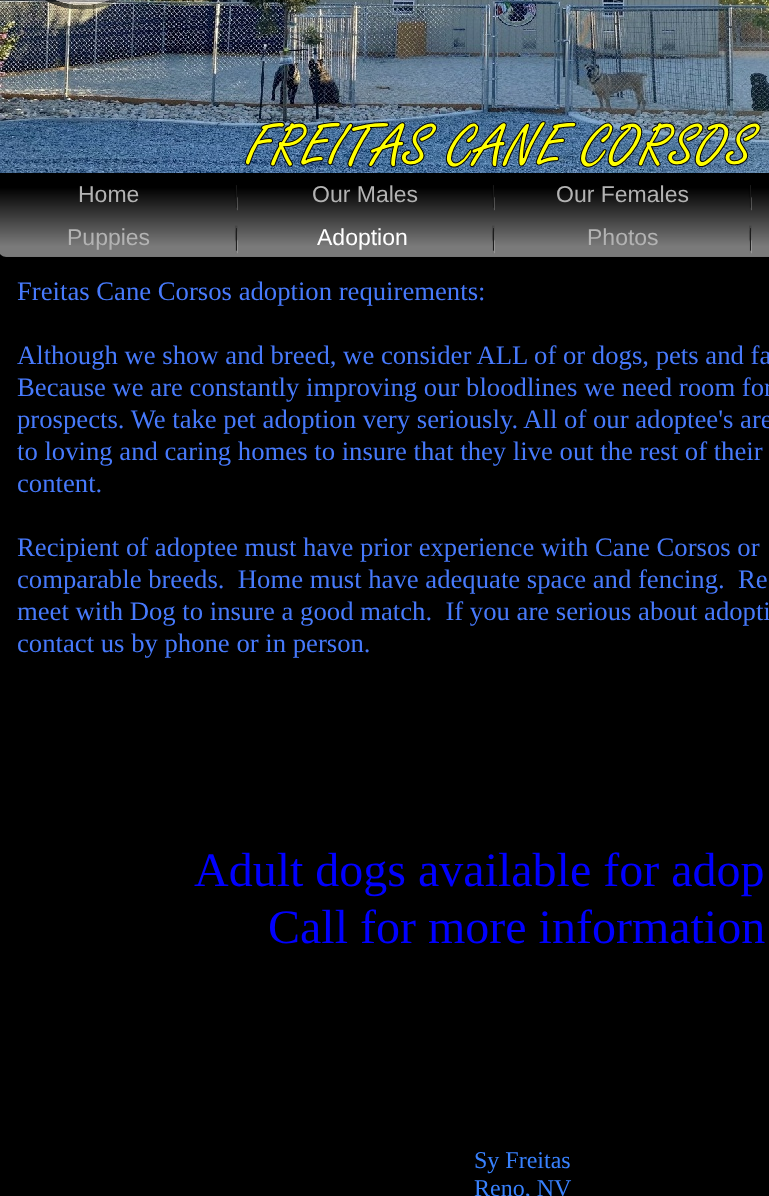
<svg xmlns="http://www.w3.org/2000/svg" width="769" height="1196">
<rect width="100%" height="100%" fill="#000"/>
<image x="0" y="0" width="769" height="173" href="media/1.png"/>
<image x="45" y="0" width="74" height="10" href="media/2.png"/>
<image x="245" y="121" width="516" height="47" href="media/3.png"/>
<image x="0" y="185" width="769" height="72" href="media/4.png"/>
<text x="78" y="202" style="font-family:Liberation Sans;font-size:23px;fill:#b3b3b3">Home</text>
<text x="312" y="202" style="font-family:Liberation Sans;font-size:23px;fill:#b3b3b3">Our Males</text>
<text x="556" y="202" style="font-family:Liberation Sans;font-size:23px;fill:#b3b3b3">Our Females</text>
<text x="67" y="245" style="font-family:Liberation Sans;font-size:23px;fill:#b3b3b3">Puppies</text>
<text x="317" y="245" style="font-family:Liberation Sans;font-size:23px;fill:#fff">Adoption</text>
<text x="587" y="245" style="font-family:Liberation Sans;font-size:23px;fill:#b3b3b3">Photos</text>
<text x="17" y="300" style="font-family:Liberation Serif;font-size:26.7px;fill:#477afc">Freitas Cane Corsos adoption requirements:</text>
<text x="17" y="364" style="font-family:Liberation Serif;font-size:26.7px;fill:#477afc">Although we show and breed, we consider ALL of or dogs, pets and fa</text>
<text x="17" y="396" style="font-family:Liberation Serif;font-size:26.7px;fill:#477afc">Because we are constantly improving our bloodlines we need room for</text>
<text x="17" y="428" style="font-family:Liberation Serif;font-size:26.7px;fill:#477afc">prospects. We take pet adoption very seriously. All of our adoptee's are</text>
<text x="17" y="460" style="font-family:Liberation Serif;font-size:26.7px;fill:#477afc">to loving and caring homes to insure that they live out the rest of their</text>
<text x="17" y="492" style="font-family:Liberation Serif;font-size:26.7px;fill:#477afc">content.</text>
<text x="17" y="556" style="font-family:Liberation Serif;font-size:26.7px;fill:#477afc">Recipient of adoptee must have prior experience with Cane Corsos or</text>
<text x="17" y="588" style="font-family:Liberation Serif;font-size:26.7px;fill:#477afc" xml:space="preserve">comparable breeds.  Home must have adequate space and fencing.  Re</text>
<text x="17" y="620" style="font-family:Liberation Serif;font-size:26.7px;fill:#477afc" xml:space="preserve">meet with Dog to insure a good match.  If you are serious about adopti</text>
<text x="17" y="652" style="font-family:Liberation Serif;font-size:26.7px;fill:#477afc">contact us by phone or in person.</text>
<text x="194" y="886" style="font-family:Liberation Serif;font-size:48px;fill:#00f">Adult dogs available for adop</text>
<text x="268" y="943" style="font-family:Liberation Serif;font-size:48px;fill:#00f">Call for more information</text>
<text x="474" y="1168" style="font-family:Liberation Serif;font-size:24px;fill:#3881fd">Sy Freitas</text>
<text x="474" y="1196" style="font-family:Liberation Serif;font-size:24px;fill:#3881fd">Reno, NV</text>
</svg>
